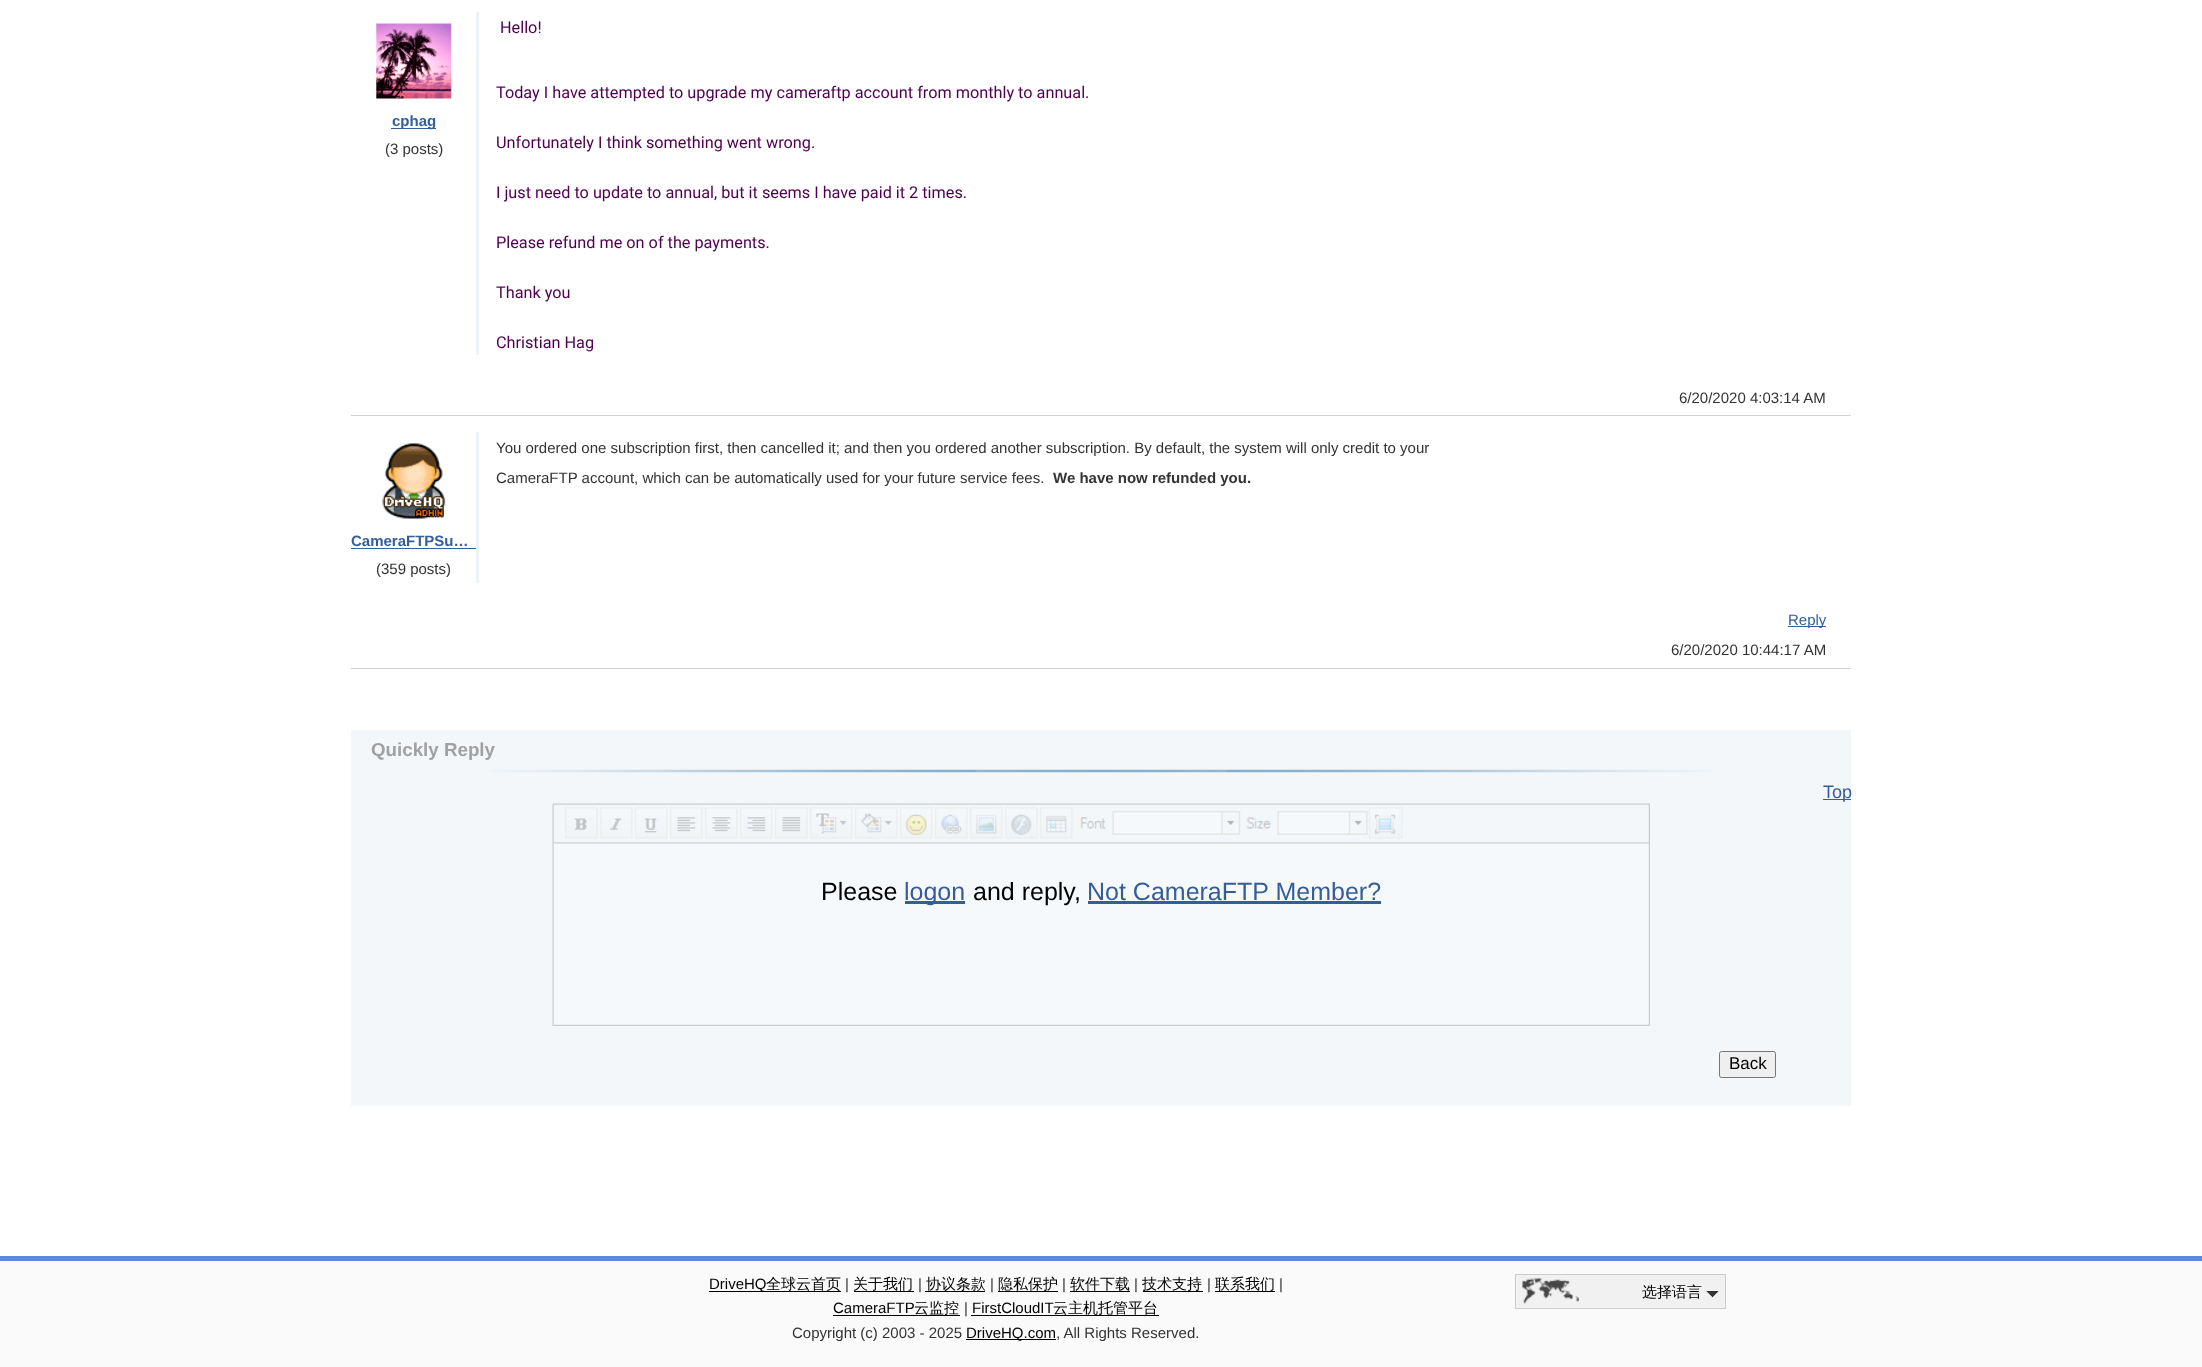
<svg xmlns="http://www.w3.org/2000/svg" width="2202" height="1367">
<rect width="100%" height="100%" fill="#fff"/>
<image x="376" y="23" width="76" height="76" href="media/1.png"/>
<rect x="391" y="128" width="45" height="1" fill="#345d9a"/>
<text x="392" y="126" style="font-family:Liberation Sans;font-size:15px;font-weight:bold;fill:#345d9a">cphag</text>
<text x="385" y="154" style="font-family:Liberation Sans;font-size:15px;fill:#333">(3 posts)</text>
<rect x="476" y="12" width="3" height="343" fill="#edf3f7"/>
<text x="500" y="33" style="font-family:Roboto;font-size:16.25px;fill:#500050">Hello!</text>
<text x="496" y="98" style="font-family:Roboto;font-size:16.25px;fill:#500050">Today I have attempted to upgrade my cameraftp account from monthly to annual.</text>
<text x="496" y="148" style="font-family:Roboto;font-size:16.25px;fill:#500050">Unfortunately I think something went wrong.</text>
<text x="496" y="198" style="font-family:Roboto;font-size:16.25px;fill:#500050">I just need to update to annual, but it seems I have paid it 2 times.</text>
<text x="496" y="248" style="font-family:Roboto;font-size:16.25px;fill:#500050">Please refund me on of the payments.</text>
<text x="496" y="298" style="font-family:Roboto;font-size:16.25px;fill:#500050">Thank you</text>
<text x="496" y="348" style="font-family:Roboto;font-size:16.25px;fill:#500050">Christian Hag</text>
<text x="1679" y="403" style="font-family:Liberation Sans;font-size:15px;fill:#333">6/20/2020 4:03:14 AM</text>
<rect x="351" y="415" width="1500" height="1" fill="#d1d1d1"/>
<rect x="476" y="432" width="3" height="151" fill="#edf3f7"/>
<text x="496" y="453" style="font-family:Liberation Sans;font-size:15px;fill:#333">You ordered one subscription first, then cancelled it; and then you ordered another subscription. By default, the system will only credit to your</text>
<text x="496" y="483" style="font-family:Liberation Sans;font-size:15px;fill:#333">CameraFTP account, which can be automatically used for your future service fees.</text>
<text x="1053" y="483" style="font-family:Liberation Sans;font-size:15px;font-weight:bold;fill:#333">We have now refunded you.</text>
<image x="382" y="443" width="64" height="76" href="media/2.png"/>
<text x="351" y="546" style="font-family:Liberation Sans;font-size:15px;font-weight:bold;fill:#345d9a">CameraFTPSu…</text>
<rect x="351" y="548" width="125" height="1" fill="#345d9a"/>
<text x="376" y="574" style="font-family:Liberation Sans;font-size:15px;fill:#333">(359 posts)</text>
<rect x="1788" y="626" width="38" height="1" fill="#345d9a"/>
<text x="1788" y="625" style="font-family:Liberation Sans;font-size:15px;fill:#345d9a">Reply</text>
<text x="1671" y="655" style="font-family:Liberation Sans;font-size:15px;fill:#333">6/20/2020 10:44:17 AM</text>
<rect x="351" y="668" width="1500" height="1" fill="#d1d1d1"/>
<rect x="351" y="730" width="1500" height="376" fill="#f3f7fa"/>
<image x="491" y="769" width="1221" height="4" href="media/3.png"/>
<text x="371" y="756" style="font-family:Liberation Sans;font-size:18.75px;font-weight:bold;fill:#a1a1a1">Quickly Reply</text>
<rect x="1823" y="799" width="28" height="1" fill="#345d9a"/>
<text x="1823" y="798" style="font-family:Liberation Sans;font-size:18px;fill:#345d9a">Top</text>
<image x="552" y="803" width="1098" height="223" href="media/4.png"/>
<text x="821" y="900" style="font-family:Liberation Sans;font-size:25px;fill:#000">Please</text>
<rect x="905" y="901" width="60" height="3" fill="#345d9a"/>
<text x="904" y="900" style="font-family:Liberation Sans;font-size:25px;fill:#345d9a">logon</text>
<text x="973" y="900" style="font-family:Liberation Sans;font-size:25px;fill:#000">and reply,</text>
<text x="1087" y="900" style="font-family:Liberation Sans;font-size:25px;fill:#345d9a">Not CameraFTP Member?</text>
<rect x="1088" y="901" width="293" height="3" fill="#345d9a"/>
<rect x="1719.5" y="1051.5" width="56" height="26" rx="2" fill="#efefef" stroke="#767676"/>
<text x="1729" y="1069" style="font-family:Liberation Sans;font-size:17px;fill:#000">Back</text>
<rect y="1261" width="2202" height="106" fill="#fafafa"/>
<rect y="1256" width="2202" height="5" fill="#5a8ade"/>
<rect x="709" y="1291" width="132" height="1" fill="#000"/>
<text x="709" y="1289" style="font-family:Liberation Sans;font-size:15px;fill:#000">DriveHQ</text>
<text x="766" y="1289" style="font-family:WenQuanYi Zen Hei;font-size:15px;font-weight:500;fill:#000">全球云首页</text>
<text x="845" y="1289" style="font-family:Liberation Sans;font-size:15px;fill:#333">|</text>
<text x="853" y="1289" style="font-family:WenQuanYi Zen Hei;font-size:15px;font-weight:500;fill:#000">关于我们</text>
<rect x="854" y="1291" width="60" height="1" fill="#000"/>
<text x="918" y="1289" style="font-family:Liberation Sans;font-size:15px;fill:#333">|</text>
<rect x="925" y="1291" width="60" height="1" fill="#000"/>
<text x="926" y="1289" style="font-family:WenQuanYi Zen Hei;font-size:15px;font-weight:500;fill:#000">协议条款</text>
<text x="990" y="1289" style="font-family:Liberation Sans;font-size:15px;fill:#333">|</text>
<rect x="998" y="1291" width="60" height="1" fill="#000"/>
<text x="998" y="1289" style="font-family:WenQuanYi Zen Hei;font-size:15px;font-weight:500;fill:#000">隐私保护</text>
<text x="1062" y="1289" style="font-family:Liberation Sans;font-size:15px;fill:#333">|</text>
<text x="1070" y="1289" style="font-family:WenQuanYi Zen Hei;font-size:15px;font-weight:500;fill:#000">软件下载</text>
<rect x="1070" y="1291" width="60" height="1" fill="#000"/>
<text x="1134" y="1289" style="font-family:Liberation Sans;font-size:15px;fill:#333">|</text>
<rect x="1143" y="1291" width="60" height="1" fill="#000"/>
<text x="1142" y="1289" style="font-family:WenQuanYi Zen Hei;font-size:15px;font-weight:500;fill:#000">技术支持</text>
<text x="1207" y="1289" style="font-family:Liberation Sans;font-size:15px;fill:#333">|</text>
<text x="1215" y="1289" style="font-family:WenQuanYi Zen Hei;font-size:15px;font-weight:500;fill:#000">联系我们</text>
<rect x="1215" y="1291" width="60" height="1" fill="#000"/>
<text x="1279" y="1289" style="font-family:Liberation Sans;font-size:15px;fill:#333">|</text>
<text x="833" y="1313" style="font-family:Liberation Sans;font-size:15px;fill:#000">CameraFTP</text>
<rect x="833" y="1315" width="127" height="1" fill="#000"/>
<text x="914" y="1313" style="font-family:WenQuanYi Zen Hei;font-size:15px;font-weight:500;fill:#000">云监控</text>
<text x="964" y="1313" style="font-family:Liberation Sans;font-size:15px;fill:#333">|</text>
<text x="972" y="1313" style="font-family:Liberation Sans;font-size:15px;fill:#000">FirstCloudIT</text>
<rect x="971" y="1315" width="188" height="1" fill="#000"/>
<text x="1053" y="1313" style="font-family:WenQuanYi Zen Hei;font-size:15px;font-weight:500;fill:#000">云主机托管平台</text>
<text x="792" y="1338" style="font-family:Liberation Sans;font-size:15px;fill:#333">Copyright (c) 2003 - 2025</text>
<rect x="966" y="1339" width="90" height="1" fill="#000"/>
<text x="966" y="1338" style="font-family:Liberation Sans;font-size:15px;fill:#000">DriveHQ.com</text>
<text x="1056" y="1338" style="font-family:Liberation Sans;font-size:15px;fill:#333">, All Rights Reserved.</text>
<rect x="1515.5" y="1274.5" width="210" height="34" fill="#f1f1f1" stroke="#ccc"/>
<image x="1522" y="1278" width="57" height="26" href="media/5.png"/>
<text x="1642" y="1297" style="font-family:WenQuanYi Zen Hei;font-size:15px;font-weight:500;fill:#000">选择语言</text>
<path d="M1706 1291h13l-6.5 6.5z" fill="#333"/>
<path d="M1719 1291v6.5h-6.5z" fill="#f1f1f1"/>
<path d="M1706 1297.5v-6.5l6.5 6.5z" fill="#f1f1f1"/>
</svg>
